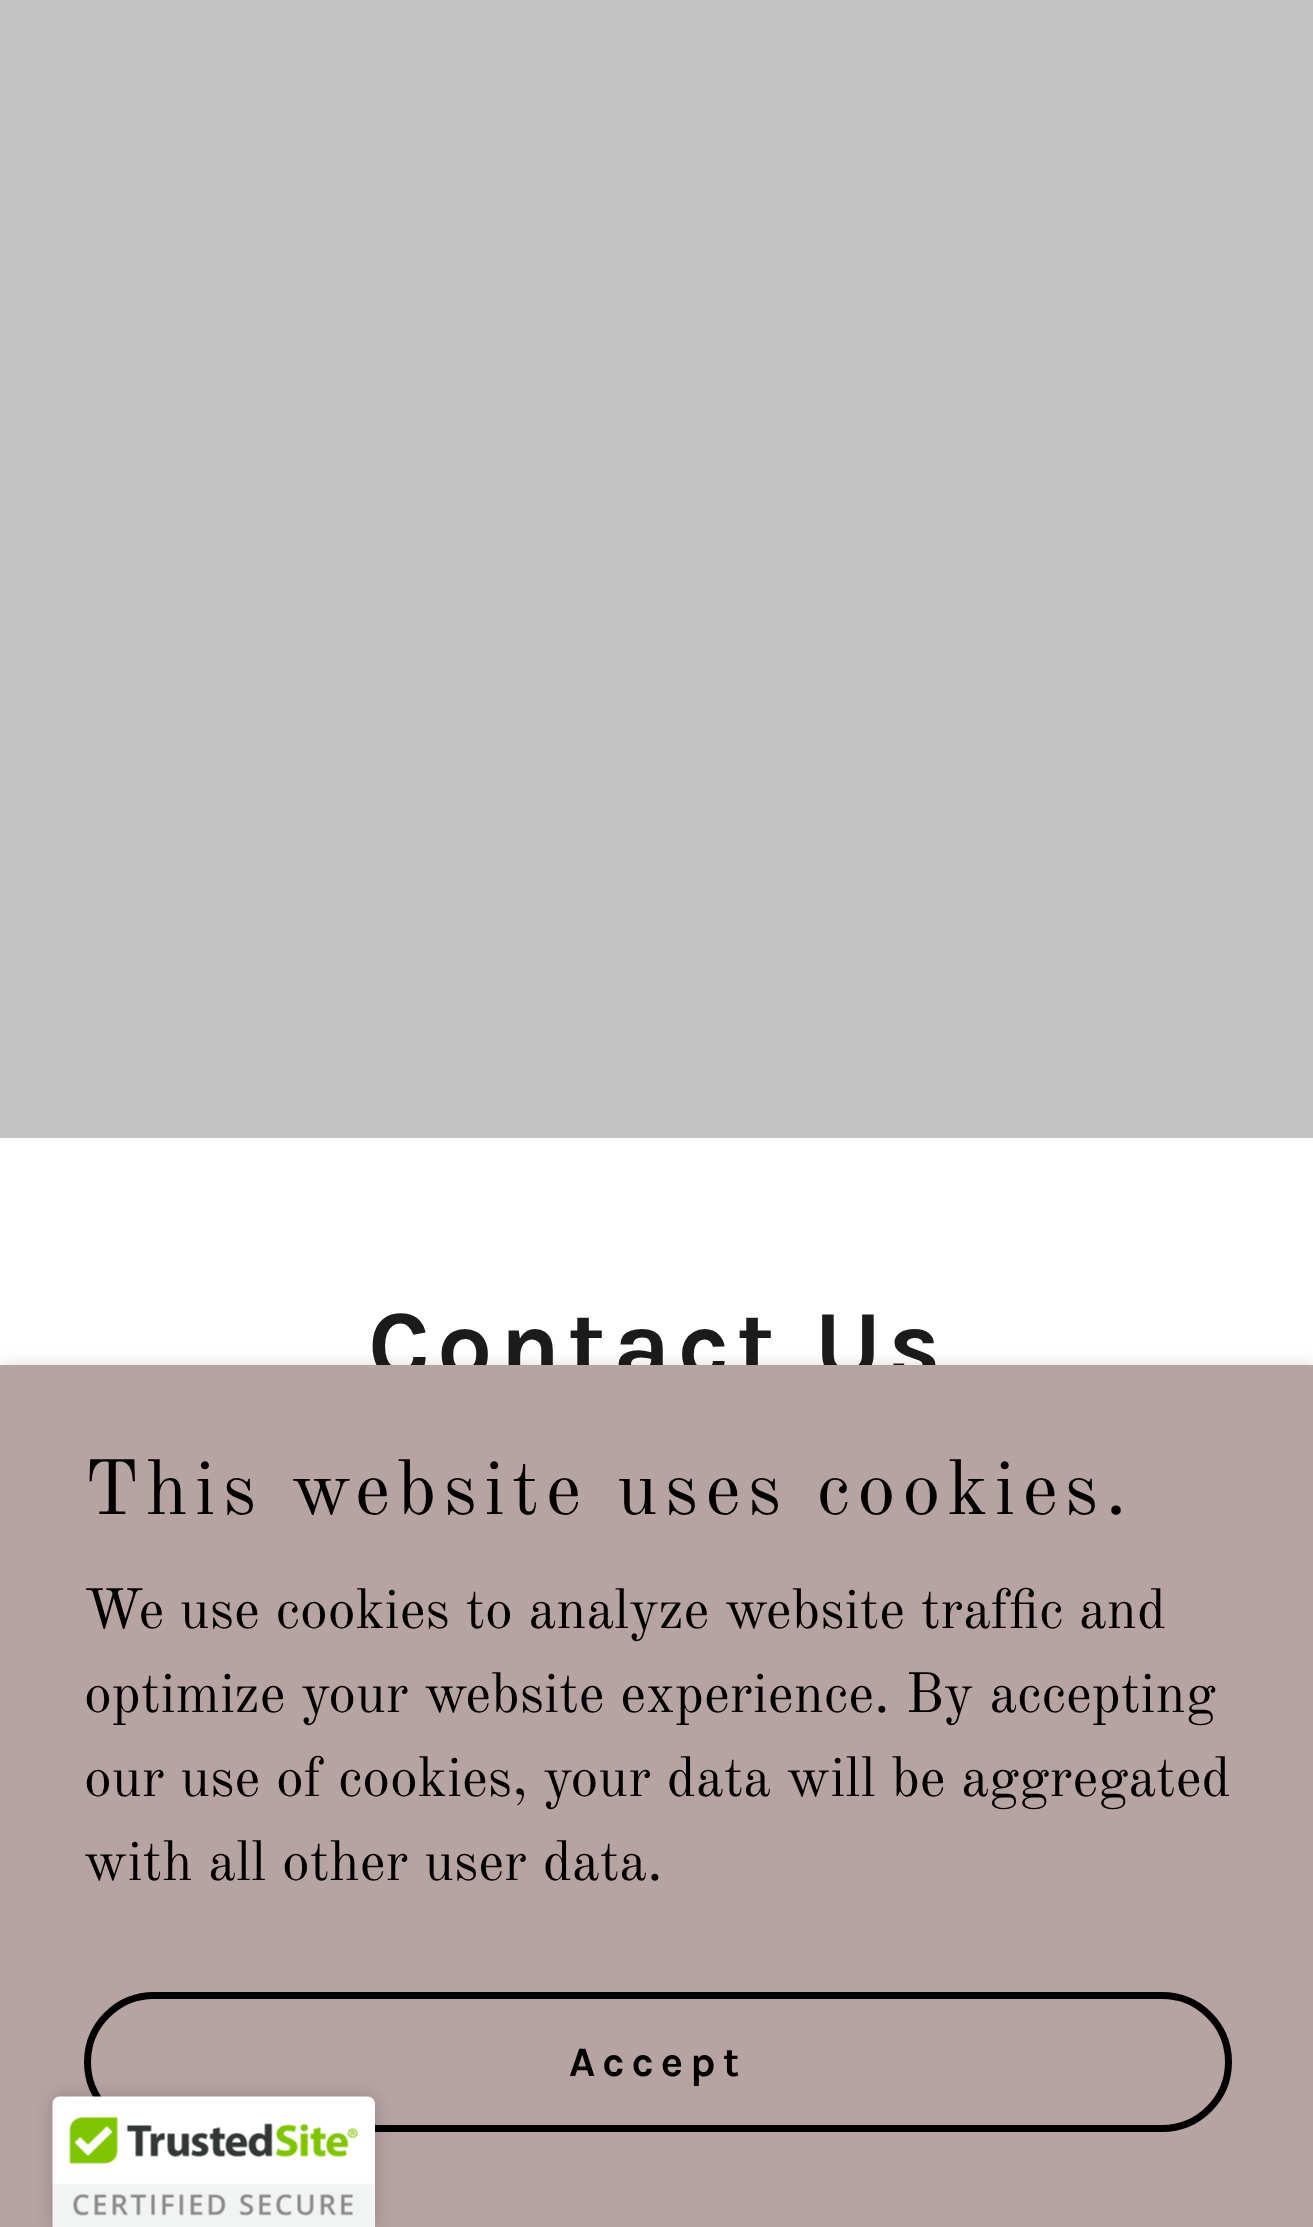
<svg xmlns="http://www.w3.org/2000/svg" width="1313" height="2227">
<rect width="100%" height="100%" fill="#c3c3c3"/>
<rect y="1138" width="1313" height="227" fill="#fff"/>
<text x="368" y="1378" style="font-family:Karla;font-size:98px;font-weight:bold;letter-spacing:7px;fill:#1b1b1b">Contact Us</text>
<rect y="1372" width="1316" height="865" fill="#0000004d" filter="blur(10.5px)"/>
<rect y="1365" width="1313" height="862" fill="#b8a3a3"/>
<text x="84" y="1514" style="font-family:Old Standard TT;font-size:77px;letter-spacing:7px;fill:#000">This website uses cookies.</text>
<text x="84" y="1628" style="font-family:Old Standard TT;font-size:56px;fill:#000">We use cookies to analyze website traffic and</text>
<text x="84" y="1712" style="font-family:Old Standard TT;font-size:56px;fill:#000">optimize your website experience. By accepting</text>
<text x="84" y="1796" style="font-family:Old Standard TT;font-size:56px;fill:#000">our use of cookies, your data will be aggregated</text>
<text x="84" y="1880" style="font-family:Old Standard TT;font-size:56px;fill:#000">with all other user data.</text>
<rect x="87.5" y="1995.5" width="1141" height="133" rx="66.5" fill="none" stroke="#000" stroke-width="7"/>
<text x="569" y="2076" style="font-family:Karla;font-size:42px;font-weight:bold;letter-spacing:7px;fill:#000">Accept</text>
<rect x="53" y="2097" width="322" height="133" rx="7" fill="#00000033" filter="blur(9px)"/>
<path d="M60 2097h308c4 0 7 3 7 7v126h-322v-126c0-4 3-7 7-7z" fill="#fff"/>
<image x="52" y="2096" width="323" height="131" href="media/1.png"/>
</svg>
